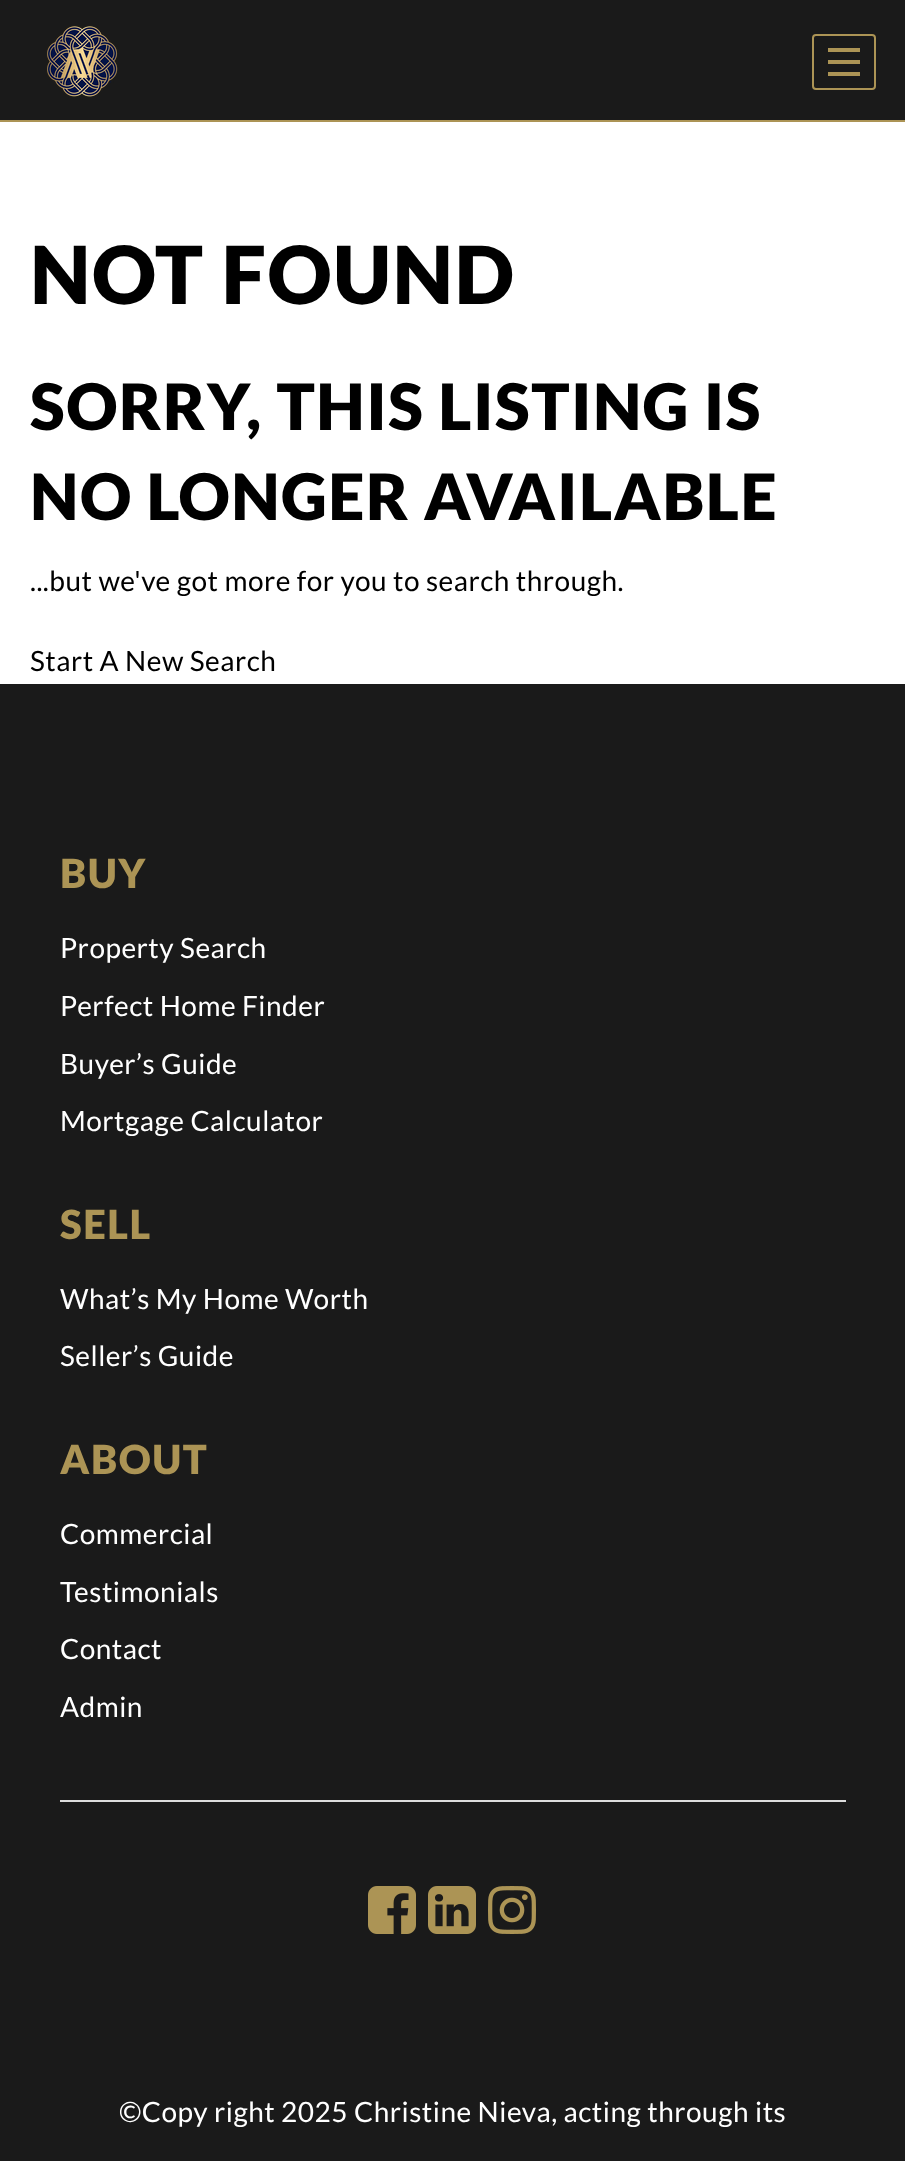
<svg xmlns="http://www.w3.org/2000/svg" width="905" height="2161">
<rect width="100%" height="100%" fill="#fff"/>
<rect width="905" height="120" fill="#1a1a1a"/>
<rect y="120" width="905" height="2" fill="#ac9455"/>
<image x="47" y="26" width="71" height="71" href="media/1.png"/>
<rect x="813" y="35" width="62" height="54" rx="3" fill="none" stroke="#ac9455" stroke-width="2"/>
<rect x="828" y="48" width="32" height="4" fill="#ac9455"/>
<rect x="828" y="60" width="32" height="4" fill="#ac9455"/>
<rect x="828" y="72" width="32" height="4" fill="#ac9455"/>
<text x="30" y="304" style="font-family:Lato;font-size:80px;font-weight:900;letter-spacing:1.5px;fill:#000">NOT FOUND</text>
<text x="30" y="430" style="font-family:Lato;font-size:64px;font-weight:900;letter-spacing:1.5px;fill:#000">SORRY, THIS LISTING IS</text>
<text x="30" y="520" style="font-family:Lato;font-size:64px;font-weight:900;letter-spacing:1.5px;fill:#000">NO LONGER AVAILABLE</text>
<text x="30" y="591" style="font-family:Lato;font-size:28px;letter-spacing:0.5px;fill:#000">...but we've got more for you to search through.</text>
<text x="30" y="671" style="font-family:Lato;font-size:28px;letter-spacing:0.5px;fill:#000">Start A New Search</text>
<rect y="684" width="905" height="1477" fill="#1a1a1a"/>
<rect x="60" y="1800" width="786" height="2" fill="#ddd"/>
<text x="60" y="888" style="font-family:Lato;font-size:40px;font-weight:900;letter-spacing:1.5px;fill:#ac9455">BUY</text>
<text x="60" y="958" style="font-family:Lato;font-size:28px;letter-spacing:0.5px;fill:#fff">Property Search</text>
<text x="60" y="1016" style="font-family:Lato;font-size:28px;letter-spacing:0.5px;fill:#fff">Perfect Home Finder</text>
<text x="60" y="1074" style="font-family:Lato;font-size:28px;letter-spacing:0.5px;fill:#fff">Buyer’s Guide</text>
<text x="60" y="1131" style="font-family:Lato;font-size:28px;letter-spacing:0.5px;fill:#fff">Mortgage Calculator</text>
<text x="60" y="1239" style="font-family:Lato;font-size:40px;font-weight:900;letter-spacing:1.5px;fill:#ac9455">SELL</text>
<text x="60" y="1309" style="font-family:Lato;font-size:28px;letter-spacing:0.5px;fill:#fff">What’s My Home Worth</text>
<text x="60" y="1366" style="font-family:Lato;font-size:28px;letter-spacing:0.5px;fill:#fff">Seller’s Guide</text>
<text x="60" y="1474" style="font-family:Lato;font-size:40px;font-weight:900;letter-spacing:1.5px;fill:#ac9455">ABOUT</text>
<text x="60" y="1544" style="font-family:Lato;font-size:28px;letter-spacing:0.5px;fill:#fff">Commercial</text>
<text x="60" y="1602" style="font-family:Lato;font-size:28px;letter-spacing:0.5px;fill:#fff">Testimonials</text>
<text x="60" y="1659" style="font-family:Lato;font-size:28px;letter-spacing:0.5px;fill:#fff">Contact</text>
<text x="60" y="1717" style="font-family:Lato;font-size:28px;letter-spacing:0.5px;fill:#fff">Admin</text>
<image x="368" y="1886" width="48" height="48" href="media/2.png"/>
<image x="428" y="1886" width="48" height="48" href="media/3.png"/>
<image x="488" y="1886" width="48" height="48" href="media/4.png"/>
<text x="119" y="2122" style="font-family:Lato;font-size:28px;letter-spacing:0.5px;fill:#fff">©Copy right 2025 Christine Nieva, acting through its</text>
</svg>
